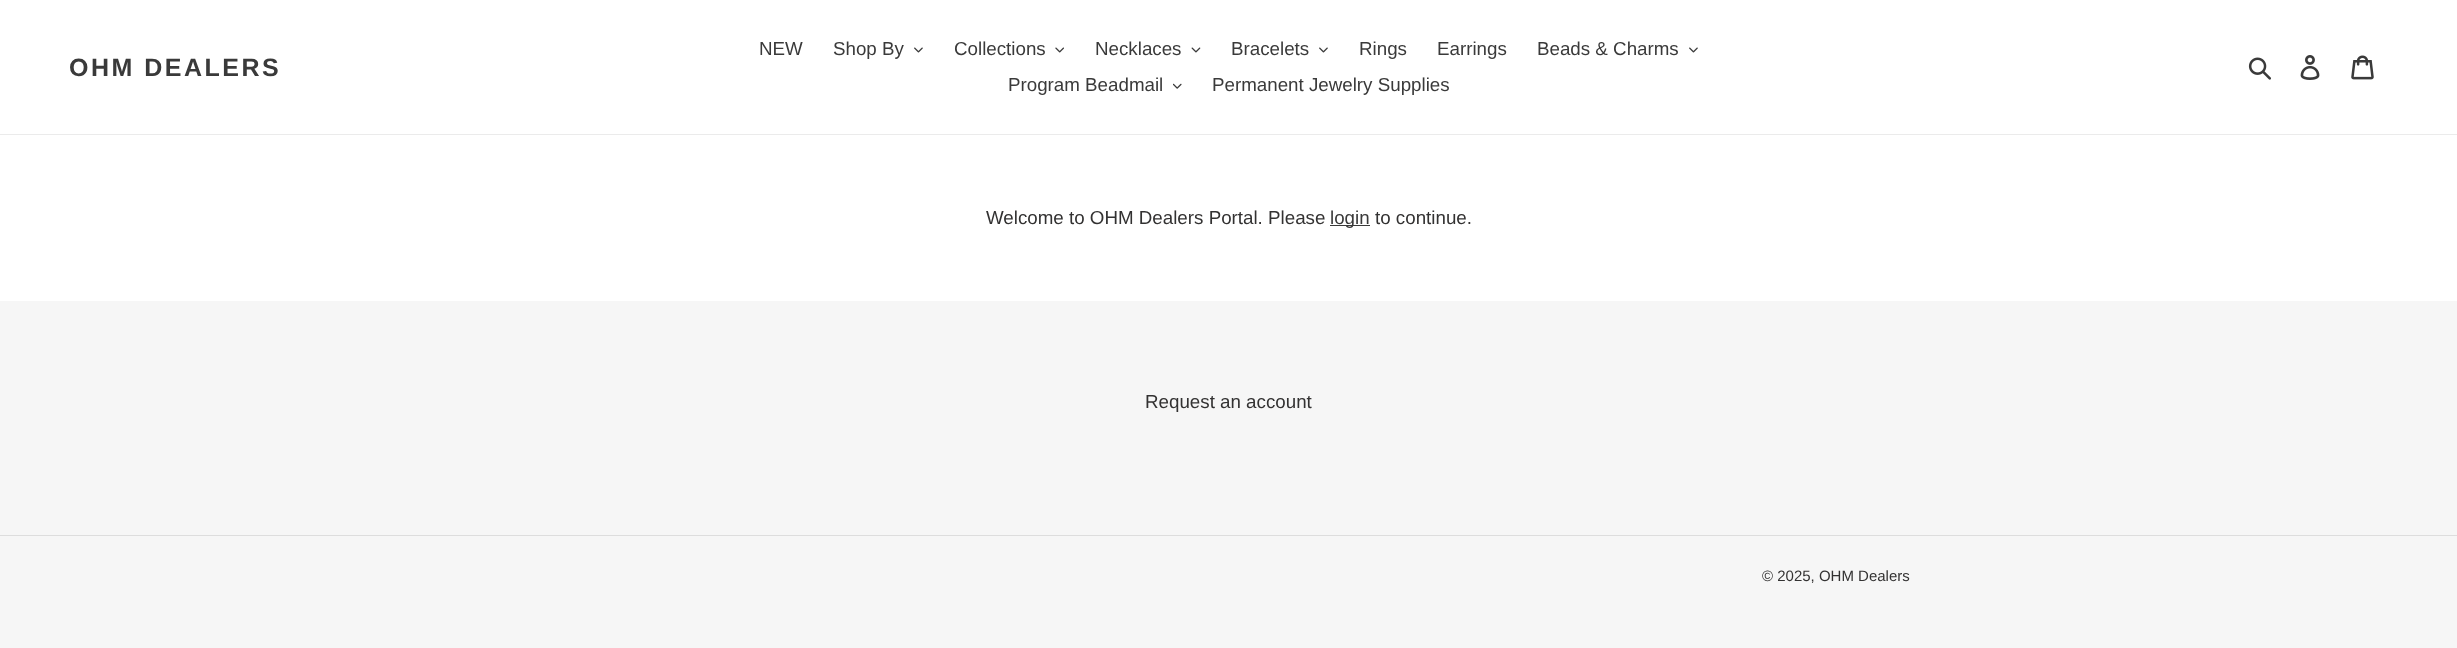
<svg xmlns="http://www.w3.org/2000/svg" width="2457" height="648">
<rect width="100%" height="100%" fill="#fff"/>
<rect y="134" width="2457" height="1" fill="#ebebeb"/>
<text x="69" y="76" style="font-family:Liberation Sans;font-size:25px;font-weight:bold;letter-spacing:2.5px;fill:#3a3a3a">OHM DEALERS</text>
<text x="759" y="55" style="font-family:Liberation Sans;font-size:18.75px;fill:#3a3a3a">NEW</text>
<text x="833" y="55" style="font-family:Liberation Sans;font-size:18.75px;fill:#3a3a3a">Shop By</text>
<image x="914" y="47" width="9" height="6" href="media/1.png"/>
<text x="954" y="55" style="font-family:Liberation Sans;font-size:18.75px;fill:#3a3a3a">Collections</text>
<image x="1055" y="47" width="9" height="6" href="media/2.png"/>
<text x="1095" y="55" style="font-family:Liberation Sans;font-size:18.75px;fill:#3a3a3a">Necklaces</text>
<image x="1191" y="47" width="10" height="6" href="media/3.png"/>
<text x="1231" y="55" style="font-family:Liberation Sans;font-size:18.75px;fill:#3a3a3a">Bracelets</text>
<image x="1319" y="47" width="9" height="6" href="media/1.png"/>
<text x="1359" y="55" style="font-family:Liberation Sans;font-size:18.75px;fill:#3a3a3a">Rings</text>
<text x="1437" y="55" style="font-family:Liberation Sans;font-size:18.75px;fill:#3a3a3a">Earrings</text>
<text x="1537" y="55" style="font-family:Liberation Sans;font-size:18.75px;fill:#3a3a3a">Beads &amp; Charms</text>
<image x="1689" y="47" width="9" height="6" href="media/1.png"/>
<text x="1008" y="91" style="font-family:Liberation Sans;font-size:18.75px;fill:#3a3a3a">Program Beadmail</text>
<image x="1173" y="83" width="9" height="6" href="media/4.png"/>
<text x="1212" y="91" style="font-family:Liberation Sans;font-size:18.75px;fill:#3a3a3a">Permanent Jewelry Supplies</text>
<image x="2248" y="57" width="23" height="23" href="media/5.png"/>
<image x="2300" y="55" width="20" height="25" href="media/6.png"/>
<image x="2351" y="55" width="23" height="25" href="media/7.png"/>
<text x="986" y="224" style="font-family:Liberation Sans;font-size:18.75px;fill:#333232">Welcome to OHM Dealers Portal. Please</text>
<rect x="1330" y="225" width="40" height="1" fill="#3a3a3a"/>
<text x="1330" y="224" style="font-family:Liberation Sans;font-size:18.75px;fill:#3a3a3a">login</text>
<text x="1375" y="224" style="font-family:Liberation Sans;font-size:18.75px;fill:#333232">to continue.</text>
<rect y="301" width="2457" height="347" fill="#f6f6f6"/>
<text x="1145" y="408" style="font-family:Liberation Sans;font-size:18.75px;fill:#333232">Request an account</text>
<rect y="535" width="2457" height="1" fill="#ddd"/>
<text x="1762" y="581" style="font-family:Liberation Sans;font-size:15px;fill:#333232">© 2025, OHM Dealers</text>
</svg>
